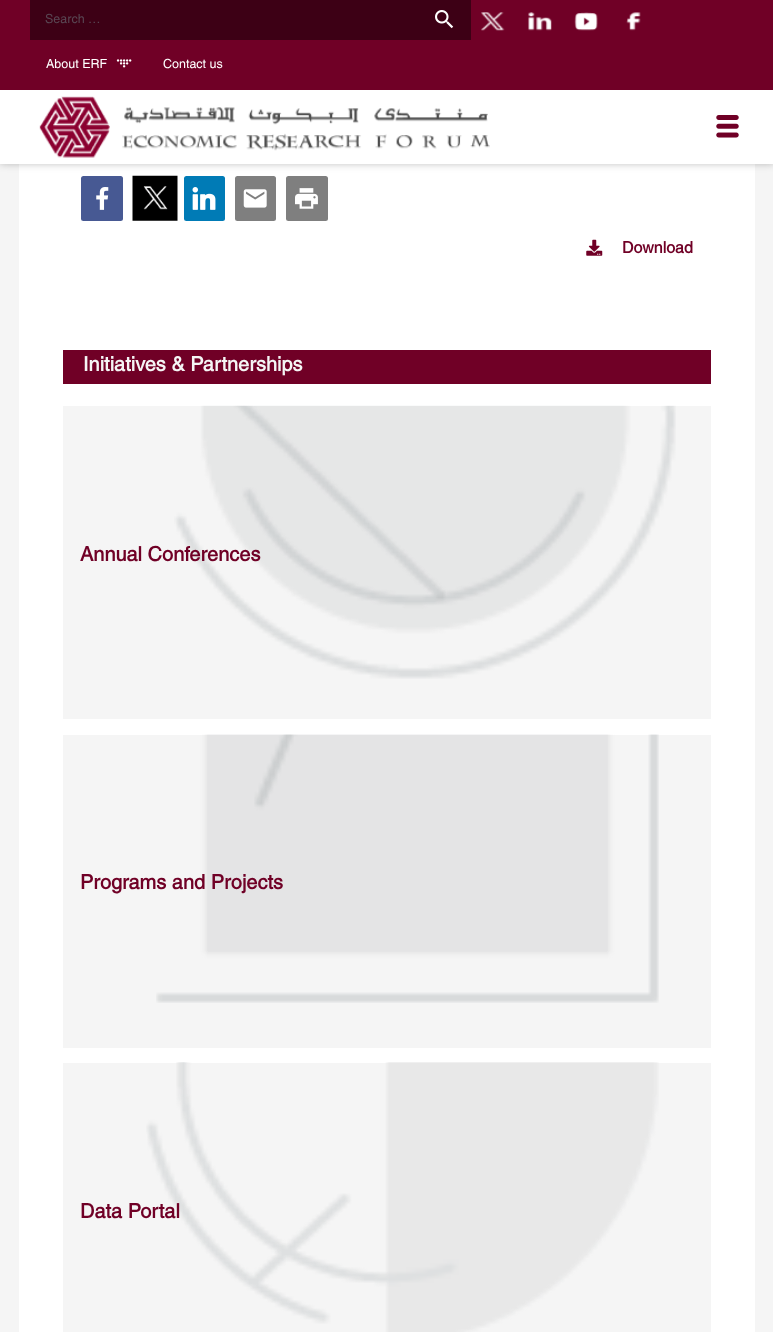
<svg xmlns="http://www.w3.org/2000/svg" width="773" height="1332">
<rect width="100%" height="100%" fill="#f5f5f5"/>
<rect x="19" y="164" width="736" height="1168" fill="#fff"/>
<image x="132" y="175" width="46" height="46" href="media/10.png"/>
<rect y="-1" width="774" height="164" fill="#0000004d" filter="blur(4px)"/>
<rect y="90" width="773" height="74" fill="#fff"/>
<rect width="773" height="90" fill="#700026"/>
<rect x="30" width="441" height="40" fill="#3d0015"/>
<text x="45" y="23" style="font-family:Helvetica;font-size:12.5px;fill:#594653">Search …</text>
<image x="435" y="10" width="19" height="19" href="media/1.png"/>
<image x="481" y="12" width="24" height="19" href="media/2.png"/>
<image x="528" y="12" width="24" height="19" href="media/3.png"/>
<image x="574" y="12" width="24" height="19" href="media/4.png"/>
<image x="626" y="12" width="15" height="19" href="media/5.png"/>
<text x="46" y="68" style="font-family:Helvetica;font-size:12.5px;fill:#fff">About ERF</text>
<image x="116" y="59" width="16" height="9" href="media/6.png"/>
<text x="163" y="68" style="font-family:Helvetica;font-size:12.5px;fill:#fff">Contact us</text>
<image x="39" y="96" width="451" height="62" href="media/7.png"/>
<image x="716" y="115" width="23" height="23" href="media/8.png"/>
<rect x="81" y="176" width="42" height="45" rx="2.5" fill="#475993"/>
<image x="96" y="187" width="13" height="23" href="media/9.png"/>
<rect x="184" y="176" width="41" height="45" rx="2.5" fill="#007bb6"/>
<image x="192" y="187" width="24" height="23" href="media/11.png"/>
<rect x="235" y="176" width="41" height="45" rx="2.5" fill="#7f7f7f"/>
<image x="243" y="189" width="24" height="19" href="media/12.png"/>
<rect x="286" y="176" width="42" height="45" rx="2.5" fill="#7f7f7f"/>
<image x="295" y="188" width="23" height="21" href="media/13.png"/>
<image x="586" y="239" width="17" height="17" href="media/14.png"/>
<text x="622" y="253" style="font-family:Helvetica;font-size:16px;font-weight:bold;fill:#700026">Download</text>
<rect x="63" y="350" width="648" height="34" fill="#700026"/>
<text x="83" y="371" style="font-family:Helvetica;font-size:20px;font-weight:bold;fill:#f5f5f5">Initiatives &amp; Partnerships</text>
<rect x="63" y="406" width="648" height="313" fill="#f5f5f5"/>
<image x="174" y="405" width="502" height="274" href="media/15.png"/>
<text x="80" y="561" style="font-family:Helvetica;font-size:20px;font-weight:bold;fill:#700026">Annual Conferences</text>
<rect x="63" y="735" width="648" height="313" fill="#f5f5f5"/>
<image x="156" y="734" width="503" height="269" href="media/16.png"/>
<text x="80" y="889" style="font-family:Helvetica;font-size:20px;font-weight:bold;fill:#700026">Programs and Projects</text>
<rect x="63" y="1063" width="648" height="269" fill="#f5f5f5"/>
<image x="146" y="1062" width="513" height="270" href="media/17.png"/>
<text x="80" y="1218" style="font-family:Helvetica;font-size:20px;font-weight:bold;fill:#700026">Data Portal</text>
</svg>
